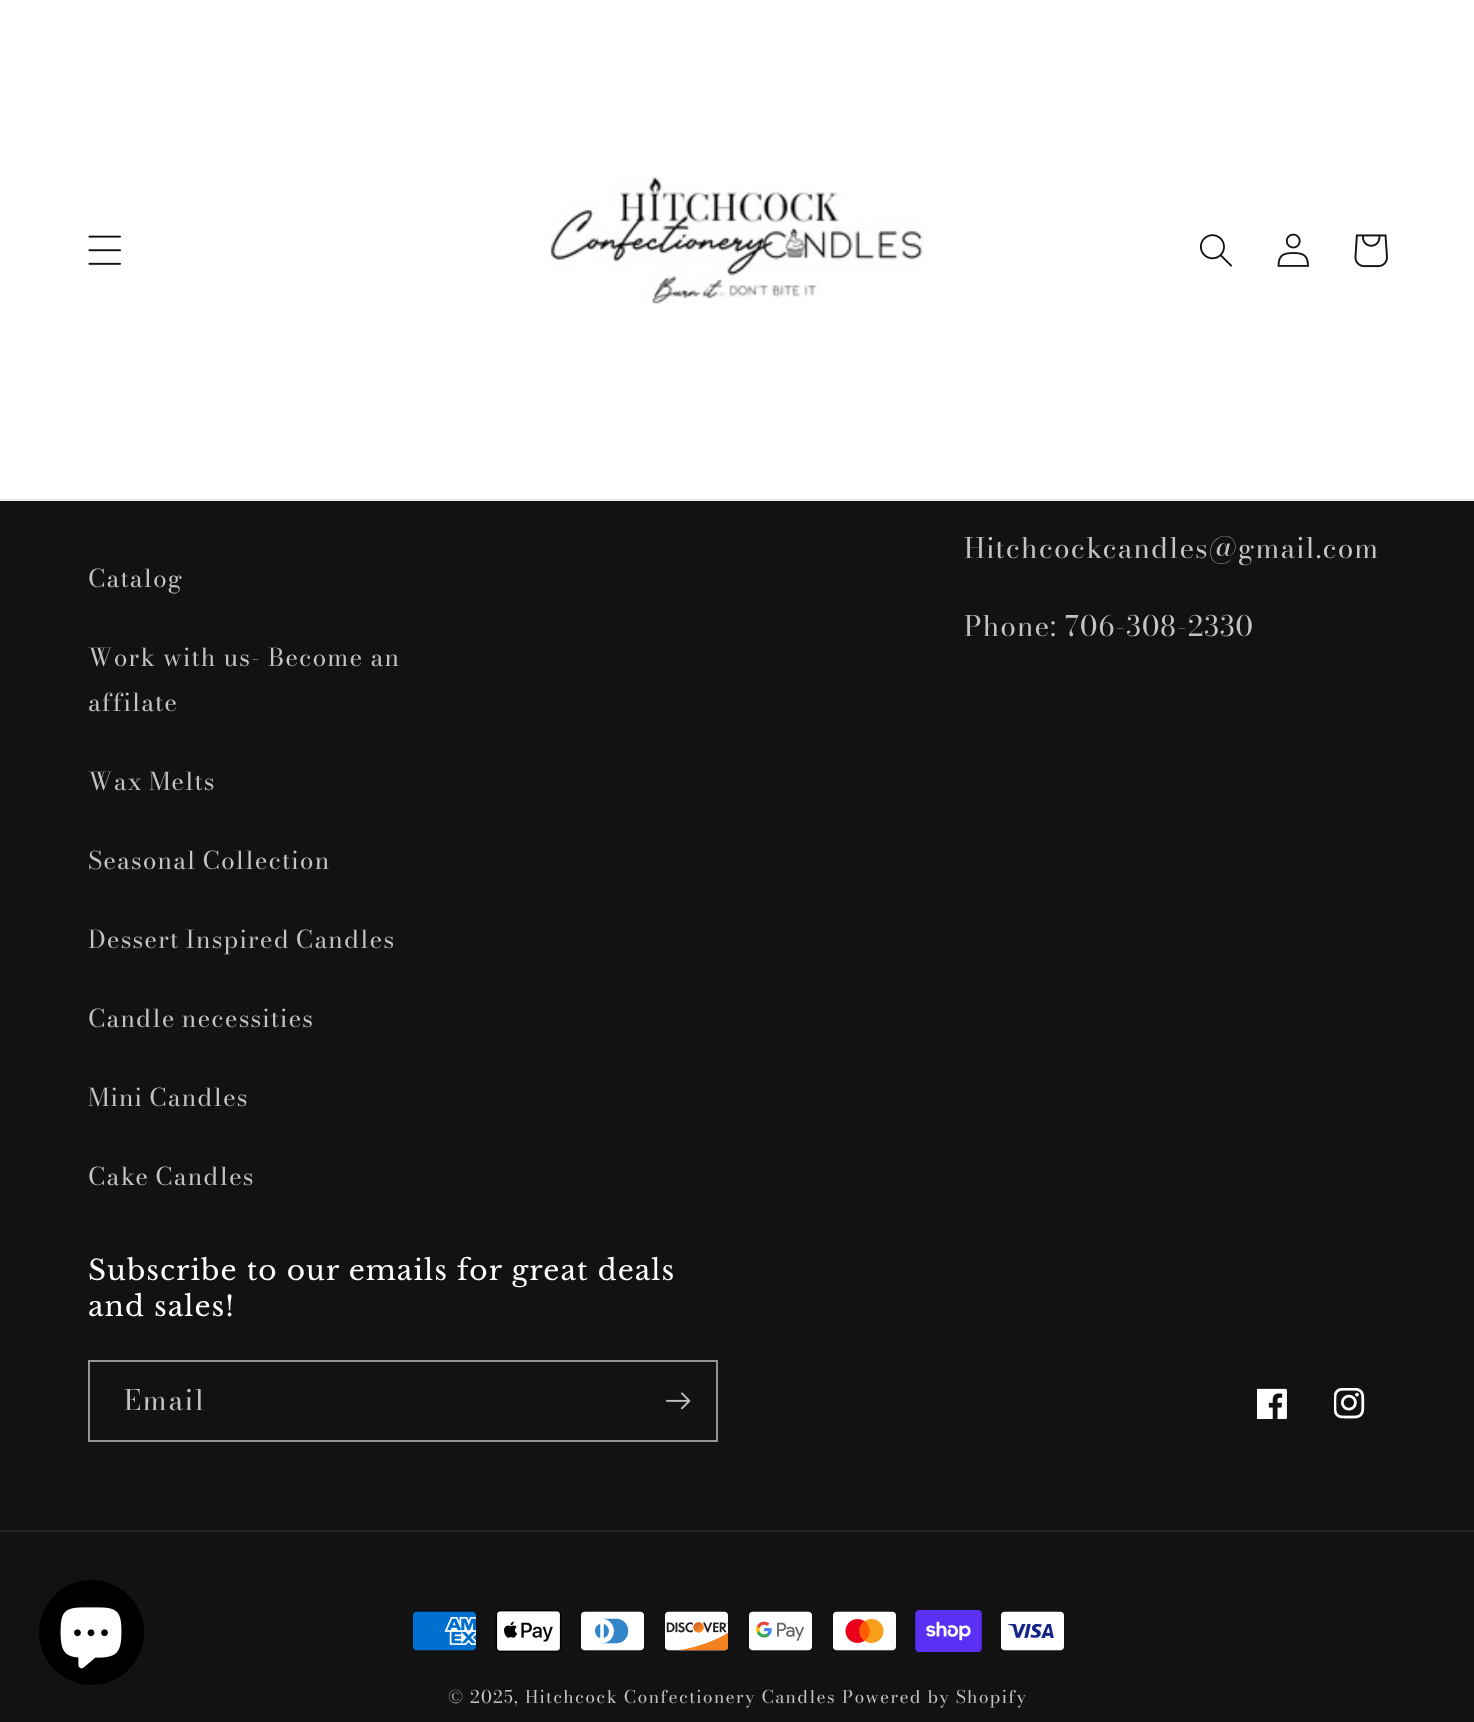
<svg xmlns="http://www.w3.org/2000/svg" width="1474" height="1722">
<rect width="100%" height="100%" fill="#121212"/>
<rect width="1474" height="499" fill="#fff"/>
<rect y="499" width="1474" height="2" fill="#ececec"/>
<image x="88" y="235" width="33" height="30" href="media/1.png"/>
<image x="548" y="176" width="377" height="128" href="media/2.png"/>
<image x="1200" y="234" width="32" height="33" href="media/3.png"/>
<image x="1277" y="233" width="32" height="34" href="media/4.png"/>
<image x="1354" y="234" width="34" height="34" href="media/5.png"/>
<text x="88" y="587" style="font-family:Bodoni Moda;font-size:24.5px;letter-spacing:1.05px;fill:#c4c4c4">Catalog</text>
<text x="88" y="666" style="font-family:Bodoni Moda;font-size:24.5px;letter-spacing:1.05px;fill:#c4c4c4">Work with us- Become an</text>
<text x="88" y="711" style="font-family:Bodoni Moda;font-size:24.5px;letter-spacing:1.05px;fill:#c4c4c4">affilate</text>
<text x="88" y="790" word-spacing="-1" style="font-family:Bodoni Moda;font-size:24.5px;letter-spacing:1.05px;fill:#c4c4c4">Wax Melts</text>
<text x="88" y="869" word-spacing="-1" style="font-family:Bodoni Moda;font-size:24.5px;letter-spacing:1.05px;fill:#c4c4c4">Seasonal Collection</text>
<text x="88" y="948" word-spacing="-1" style="font-family:Bodoni Moda;font-size:24.5px;letter-spacing:1.05px;fill:#c4c4c4">Dessert Inspired Candles</text>
<text x="88" y="1027" word-spacing="-1" style="font-family:Bodoni Moda;font-size:24.5px;letter-spacing:1.05px;fill:#c4c4c4">Candle necessities</text>
<text x="88" y="1106" word-spacing="-1" style="font-family:Bodoni Moda;font-size:24.5px;letter-spacing:1.05px;fill:#c4c4c4">Mini Candles</text>
<text x="88" y="1185" word-spacing="-1" style="font-family:Bodoni Moda;font-size:24.5px;letter-spacing:1.05px;fill:#c4c4c4">Cake Candles</text>
<text x="964" y="558" style="font-family:'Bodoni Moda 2';font-size:28px;letter-spacing:1.05px;fill:#c4c4c4">Hitchcockcandles@gmail.com</text>
<text x="964" y="636" style="font-family:'Bodoni Moda 2';font-size:28px;letter-spacing:1.05px;fill:#c4c4c4">Phone: 706-308-2330</text>
<text x="88" y="1280" style="font-family:Libre Baskerville;font-size:28px;letter-spacing:1.05px;fill:#fff">Subscribe to our emails for great deals</text>
<text x="88" y="1316" style="font-family:Libre Baskerville;font-size:28px;letter-spacing:1.05px;fill:#fff">and sales!</text>
<rect x="89" y="1361" width="628" height="80" fill="none" stroke="#949494" stroke-width="2"/>
<text x="124" y="1410" style="font-family:'Bodoni Moda 2';font-size:28px;letter-spacing:1.75px;fill:#c4c4c4">Email</text>
<image x="666" y="1392" width="25" height="18" href="media/6.png"/>
<image x="1257" y="1388" width="30" height="31" href="media/7.png"/>
<image x="1334" y="1388" width="31" height="31" href="media/8.png"/>
<rect y="1530" width="1474" height="2" fill="#252525"/>
<image x="413" y="1611" width="63" height="40" href="media/9.png"/>
<image x="495" y="1610" width="67" height="42" href="media/10.png"/>
<image x="581" y="1611" width="63" height="40" href="media/11.png"/>
<image x="665" y="1611" width="64" height="40" href="media/12.png"/>
<image x="749" y="1611" width="63" height="40" href="media/13.png"/>
<image x="833" y="1611" width="63" height="40" href="media/14.png"/>
<image x="915" y="1610" width="67" height="42" href="media/15.png"/>
<image x="1001" y="1611" width="63" height="40" href="media/16.png"/>
<text x="448" y="1703" style="font-family:Bodoni Moda;font-size:17.5px;letter-spacing:1.25px;fill:#c4c4c4">© 2025,</text>
<text x="525" y="1703" style="font-family:Bodoni Moda;font-size:17.5px;letter-spacing:1.25px;fill:#c4c4c4">Hitchcock Confectionery Candles</text>
<text x="842" y="1703" style="font-family:Bodoni Moda;font-size:17.5px;letter-spacing:1.25px;fill:#c4c4c4">Powered by Shopify</text>
<circle cx="91.5" cy="1632.5" r="52.5" fill="#000"/>
<image x="60" y="1607" width="62" height="62" href="media/17.png"/>
</svg>
